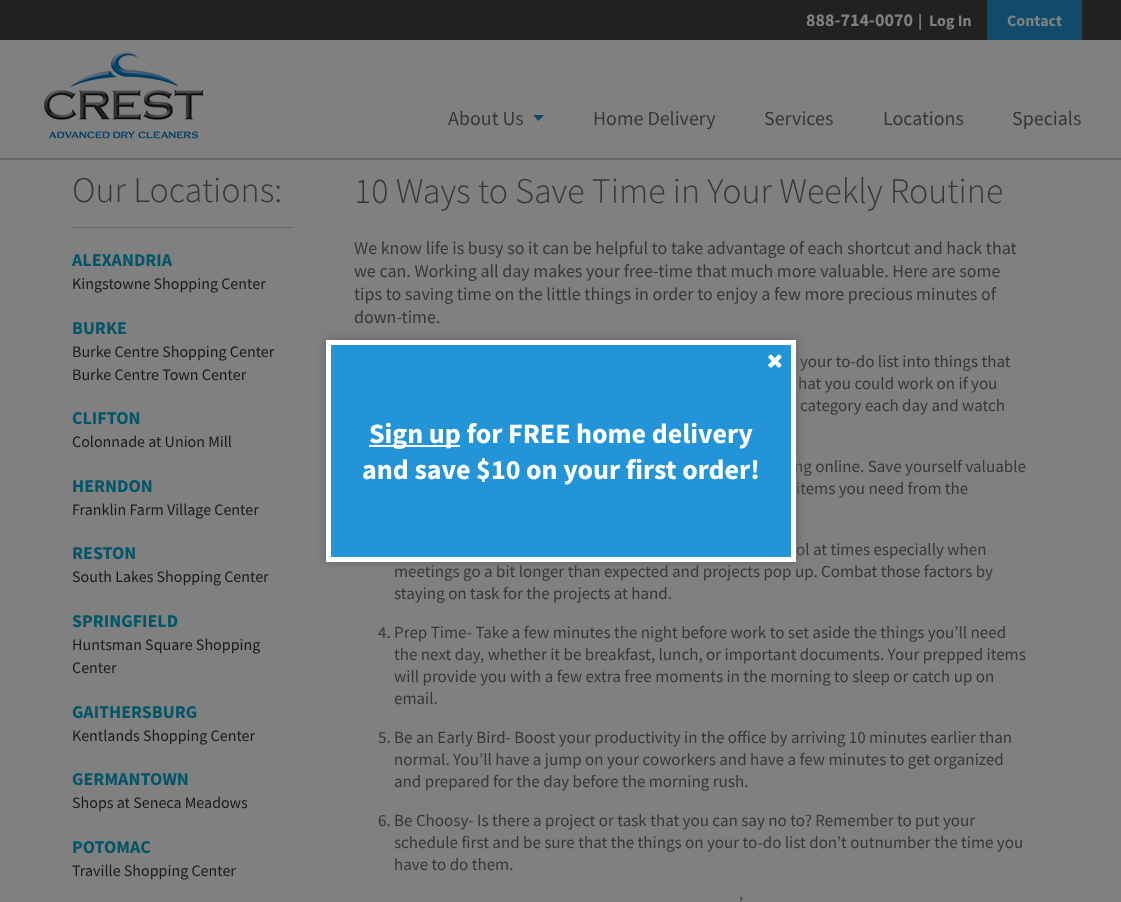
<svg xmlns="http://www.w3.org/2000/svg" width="1121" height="902">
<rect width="100%" height="100%" fill="#808080"/>
<rect y="158" width="1121" height="2" fill="#666"/>
<rect width="1121" height="40" fill="#212121"/>
<text x="806" y="26" style="font-family:Source Sans Pro;font-size:18px;font-weight:bold;fill:#808080">888-714-0070</text>
<text x="918" y="26" style="font-family:Source Sans Pro;font-size:16px;font-weight:bold;fill:#808080">|</text>
<text x="929" y="26" style="font-family:Source Sans Pro;font-size:16px;font-weight:bold;fill:#808080">Log In</text>
<rect x="987" width="95" height="40" fill="#124a6c"/>
<text x="1007" y="26" style="font-family:Source Sans Pro;font-size:16px;font-weight:bold;fill:#808080">Contact</text>
<image x="43" y="52" width="161" height="87" href="media/1.png"/>
<image x="533" y="115" width="11" height="6" href="media/2.png"/>
<text x="448" y="125" style="font-family:Source Sans Pro;font-size:20px;fill:#373739">About Us</text>
<text x="593" y="125" style="font-family:Source Sans Pro;font-size:20px;fill:#373739">Home Delivery</text>
<text x="764" y="125" style="font-family:Source Sans Pro;font-size:20px;fill:#373739">Services</text>
<text x="883" y="125" style="font-family:Source Sans Pro;font-size:20px;fill:#373739">Locations</text>
<text x="1012" y="125" style="font-family:Source Sans Pro;font-size:20px;fill:#373739">Specials</text>
<rect x="72" y="227" width="220" height="1" fill="#666"/>
<text x="72" y="202" style="font-family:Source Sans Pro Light;font-size:36px;font-weight:300;fill:#373739">Our Locations:</text>
<text x="72" y="266" style="font-family:Source Sans Pro;font-size:18px;font-weight:bold;fill:#005567">ALEXANDRIA</text>
<text x="72" y="289" style="font-family:Source Sans Pro;font-size:16px;fill:#1a1a1a">Kingstowne Shopping Center</text>
<text x="72" y="334" style="font-family:Source Sans Pro;font-size:18px;font-weight:bold;fill:#005567">BURKE</text>
<text x="72" y="357" style="font-family:Source Sans Pro;font-size:16px;fill:#1a1a1a">Burke Centre Shopping Center</text>
<text x="72" y="380" style="font-family:Source Sans Pro;font-size:16px;fill:#1a1a1a">Burke Centre Town Center</text>
<text x="72" y="424" style="font-family:Source Sans Pro;font-size:18px;font-weight:bold;fill:#005567">CLIFTON</text>
<text x="72" y="447" style="font-family:Source Sans Pro;font-size:16px;fill:#1a1a1a">Colonnade at Union Mill</text>
<text x="72" y="492" style="font-family:Source Sans Pro;font-size:18px;font-weight:bold;fill:#005567">HERNDON</text>
<text x="72" y="515" style="font-family:Source Sans Pro;font-size:16px;fill:#1a1a1a">Franklin Farm Village Center</text>
<text x="72" y="559" style="font-family:Source Sans Pro;font-size:18px;font-weight:bold;fill:#005567">RESTON</text>
<text x="72" y="582" style="font-family:Source Sans Pro;font-size:16px;fill:#1a1a1a">South Lakes Shopping Center</text>
<text x="72" y="627" style="font-family:Source Sans Pro;font-size:18px;font-weight:bold;fill:#005567">SPRINGFIELD</text>
<text x="72" y="650" style="font-family:Source Sans Pro;font-size:16px;fill:#1a1a1a">Huntsman Square Shopping</text>
<text x="72" y="673" style="font-family:Source Sans Pro;font-size:16px;fill:#1a1a1a">Center</text>
<text x="72" y="718" style="font-family:Source Sans Pro;font-size:18px;font-weight:bold;fill:#005567">GAITHERSBURG</text>
<text x="72" y="741" style="font-family:Source Sans Pro;font-size:16px;fill:#1a1a1a">Kentlands Shopping Center</text>
<text x="72" y="785" style="font-family:Source Sans Pro;font-size:18px;font-weight:bold;fill:#005567">GERMANTOWN</text>
<text x="72" y="808" style="font-family:Source Sans Pro;font-size:16px;fill:#1a1a1a">Shops at Seneca Meadows</text>
<text x="72" y="853" style="font-family:Source Sans Pro;font-size:18px;font-weight:bold;fill:#005567">POTOMAC</text>
<text x="72" y="876" style="font-family:Source Sans Pro;font-size:16px;fill:#1a1a1a">Traville Shopping Center</text>
<text x="354" y="203" style="font-family:Source Sans Pro Light;font-size:36px;font-weight:300;fill:#373739">10 Ways to Save Time in Your Weekly Routine</text>
<text x="354" y="254" style="font-family:Source Sans Pro;font-size:18px;fill:#373739">We know life is busy so it can be helpful to take advantage of each shortcut and hack that</text>
<text x="354" y="277" style="font-family:Source Sans Pro;font-size:18px;fill:#373739">we can. Working all day makes your free-time that much more valuable. Here are some</text>
<text x="354" y="300" style="font-family:Source Sans Pro;font-size:18px;fill:#373739">tips to saving time on the little things in order to enjoy a few more precious minutes of</text>
<text x="354" y="323" style="font-family:Source Sans Pro;font-size:18px;fill:#373739">down-time.</text>
<text x="800" y="367" style="font-family:Source Sans Pro;font-size:17px;fill:#373739">your to-do list into things that</text>
<text x="798" y="389" style="font-family:Source Sans Pro;font-size:17px;fill:#373739">hat you could work on if you</text>
<text x="800" y="411" style="font-family:Source Sans Pro;font-size:17px;fill:#373739">category each day and watch</text>
<text x="794" y="472" style="font-family:Source Sans Pro;font-size:17px;fill:#373739">ng online. Save yourself valuable</text>
<text x="796" y="494" style="font-family:Source Sans Pro;font-size:17px;fill:#373739">items you need from the</text>
<text x="796" y="555" style="font-family:Source Sans Pro;font-size:17px;fill:#373739">ol at times especially when</text>
<text x="394" y="577" style="font-family:Source Sans Pro;font-size:17px;fill:#373739">meetings go a bit longer than expected and projects pop up. Combat those factors by</text>
<text x="394" y="599" style="font-family:Source Sans Pro;font-size:17px;fill:#373739">staying on task for the projects at hand.</text>
<text x="378" y="638" style="font-family:Source Sans Pro;font-size:17px;fill:#373739">4. Prep Time- Take a few minutes the night before work to set aside the things you’ll need</text>
<text x="394" y="660" style="font-family:Source Sans Pro;font-size:17px;fill:#373739">the next day, whether it be breakfast, lunch, or important documents. Your prepped items</text>
<text x="394" y="682" style="font-family:Source Sans Pro;font-size:17px;fill:#373739">will provide you with a few extra free moments in the morning to sleep or catch up on</text>
<text x="394" y="704" style="font-family:Source Sans Pro;font-size:17px;fill:#373739">email.</text>
<text x="378" y="743" style="font-family:Source Sans Pro;font-size:17px;fill:#373739">5. Be an Early Bird- Boost your productivity in the office by arriving 10 minutes earlier than</text>
<text x="394" y="765" style="font-family:Source Sans Pro;font-size:17px;fill:#373739">normal. You’ll have a jump on your coworkers and have a few minutes to get organized</text>
<text x="394" y="787" style="font-family:Source Sans Pro;font-size:17px;fill:#373739">and prepared for the day before the morning rush.</text>
<text x="378" y="826" style="font-family:Source Sans Pro;font-size:17px;fill:#373739">6. Be Choosy- Is there a project or task that you can say no to? Remember to put your</text>
<text x="394" y="848" style="font-family:Source Sans Pro;font-size:17px;fill:#373739">schedule first and be sure that the things on your to-do list don’t outnumber the time you</text>
<text x="394" y="870" style="font-family:Source Sans Pro;font-size:17px;fill:#373739">have to do them.</text>
<text x="739" y="909" style="font-family:Source Sans Pro;font-size:17px;fill:#373739">’</text>
<rect x="325" y="339" width="472" height="224" fill="#666" filter="blur(5px)"/>
<rect x="328.5" y="342.5" width="465" height="217" fill="#2494d8" stroke="#fff" stroke-width="5"/>
<image x="768" y="354" width="14" height="14" href="media/3.png"/>
<rect x="369" y="445" width="91" height="2" fill="#fff"/>
<text x="369" y="443" style="font-family:Source Sans Pro;font-size:28px;font-weight:bold;fill:#fff">Sign up for FREE home delivery</text>
<text x="362" y="479" style="font-family:Source Sans Pro;font-size:28px;font-weight:bold;fill:#fff">and save $10 on your first order!</text>
</svg>
